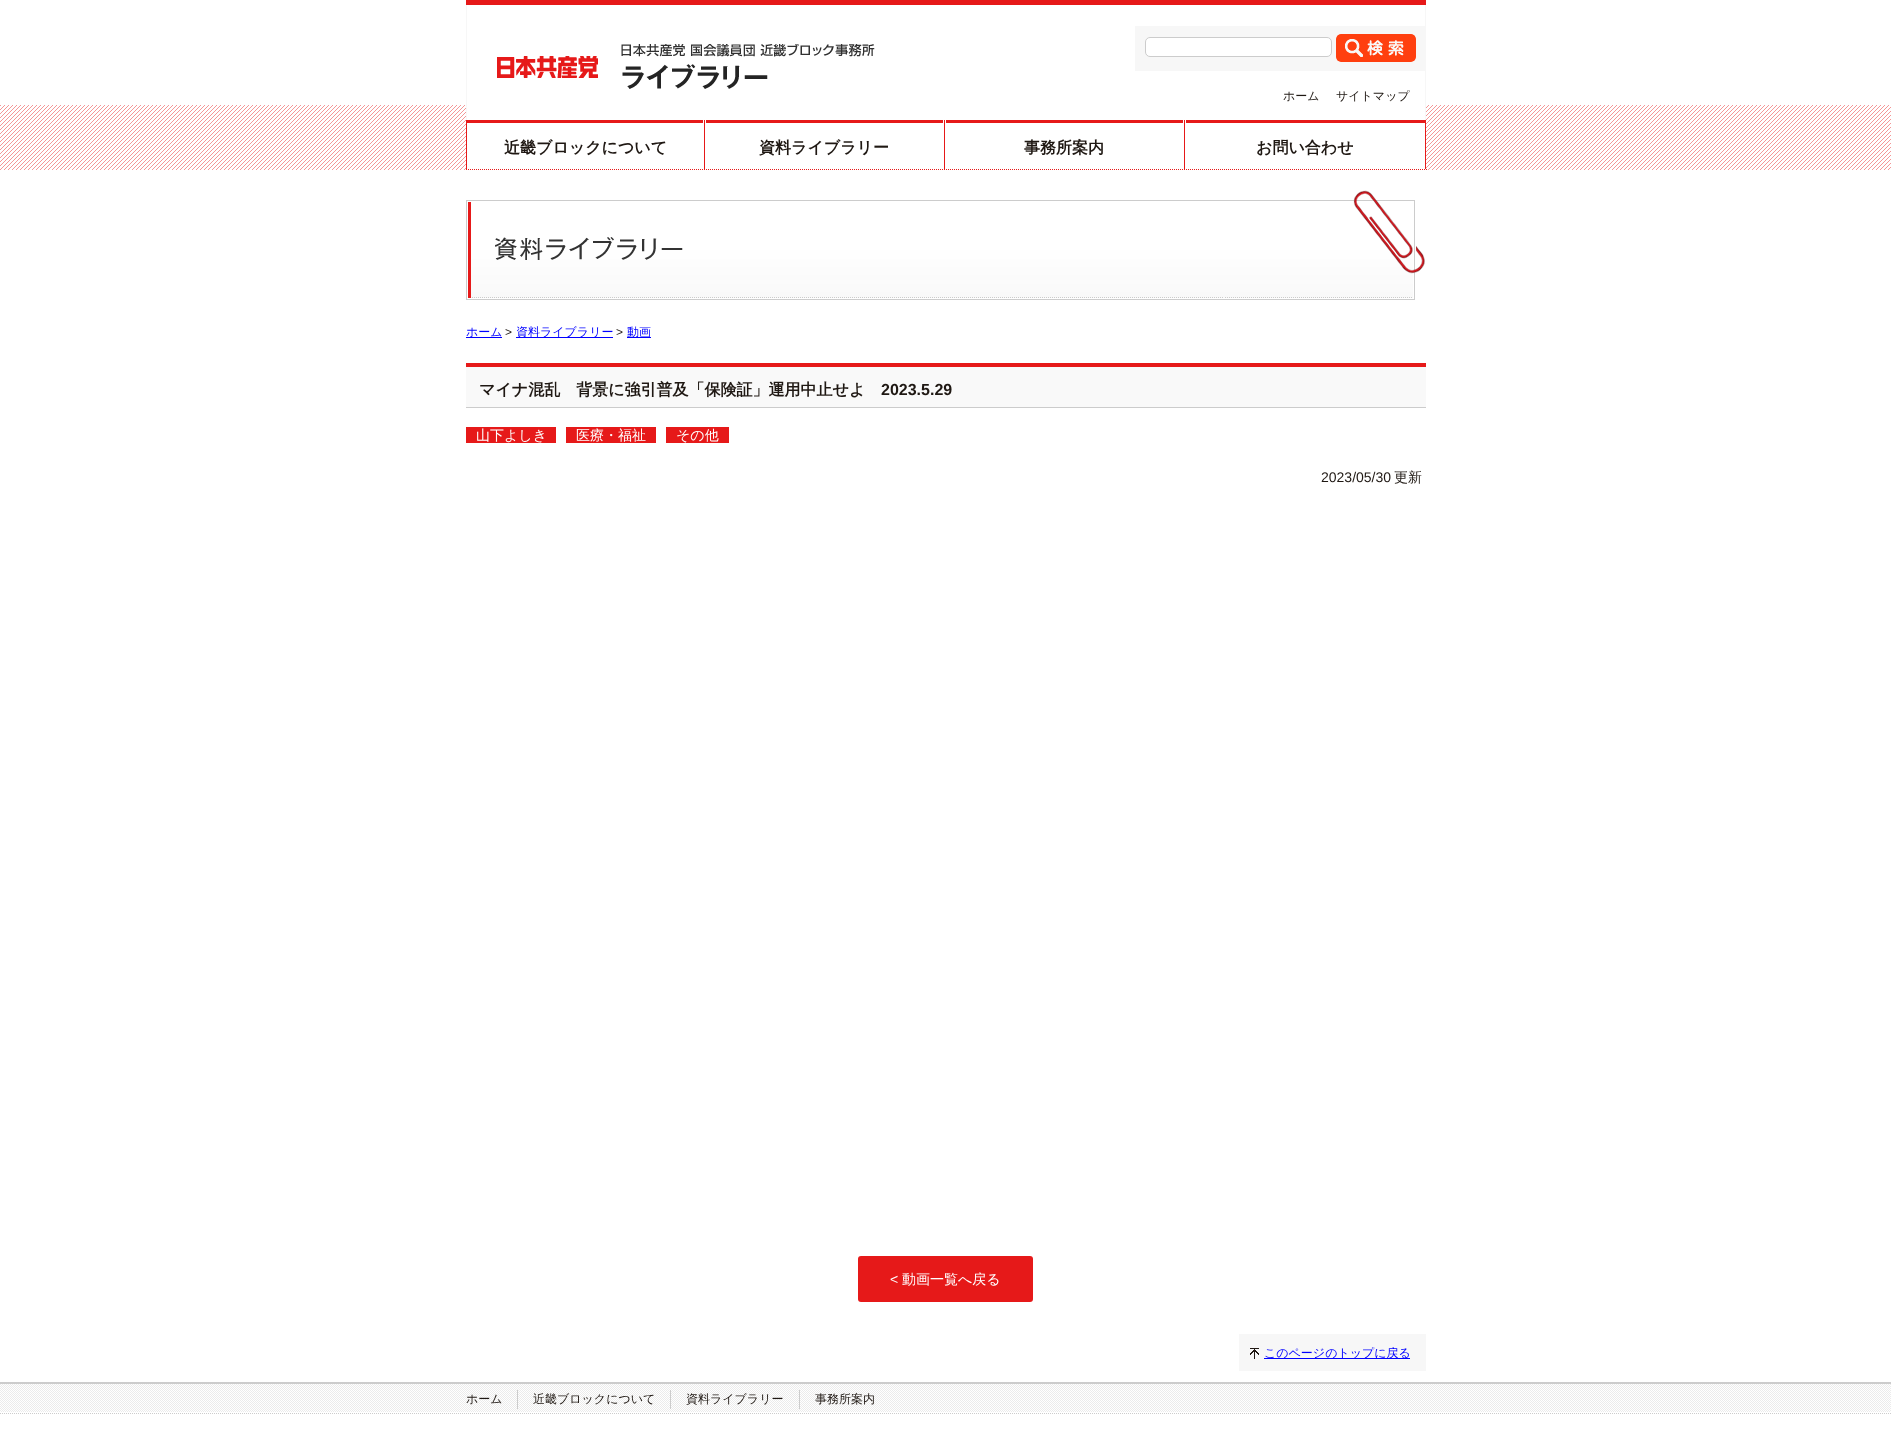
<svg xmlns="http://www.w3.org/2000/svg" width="1891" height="1450">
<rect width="100%" height="100%" fill="#fff"/>
<image x="0" y="105" width="1891" height="65" href="media/1.png"/>
<rect x="467" y="105" width="959" height="65" fill="#fff"/>
<rect x="466" width="960" height="5" fill="#e61919"/>
<rect x="1425" y="5" width="1" height="115" fill="#f7f7f7"/>
<rect x="466" y="5" width="1" height="115" fill="#f7f7f7"/>
<image x="497" y="44" width="378" height="45" href="media/2.png"/>
<rect x="1135" y="26" width="290" height="45" fill="#f7f7f7"/>
<rect x="1145.5" y="37.5" width="186" height="19" rx="4.5" fill="#fff" stroke="#ccc"/>
<image x="1336" y="34" width="80" height="28" href="media/3.png"/>
<text x="1283" y="100" style="font-family:WenQuanYi Zen Hei;font-size:12px;font-weight:500;fill:#1f1813">ホーム</text>
<text x="1336" y="100" style="font-family:WenQuanYi Zen Hei;font-size:12px;font-weight:500;fill:#1f1813">サイトマップ</text>
<image x="467" y="120" width="958" height="3" href="media/4.png"/>
<path d="M466 169.5h962" fill="none" stroke="#e61919" stroke-dasharray="1 1"/>
<rect x="466" y="120" width="1" height="50" fill="#e61919"/>
<rect x="704" y="120" width="1" height="49" fill="#e61919"/>
<text x="504" y="153" style="font-family:WenQuanYi Zen Hei;font-size:16px;font-weight:bold;fill:#1f1813">近畿ブロックについて</text>
<rect x="944" y="120" width="1" height="49" fill="#e61919"/>
<text x="759" y="153" style="font-family:WenQuanYi Zen Hei;font-size:16px;font-weight:bold;fill:#1f1813">資料ライブラリー</text>
<rect x="1184" y="120" width="1" height="49" fill="#e61919"/>
<text x="1024" y="153" style="font-family:WenQuanYi Zen Hei;font-size:16px;font-weight:bold;fill:#1f1813">事務所案内</text>
<rect x="1425" y="120" width="1" height="49" fill="#e61919"/>
<text x="1256" y="153" style="font-family:WenQuanYi Zen Hei;font-size:16px;font-weight:bold;fill:#1f1813">お問い合わせ</text>
<image x="466" y="190" width="959" height="110" href="media/5.png"/>
<rect x="466" y="337" width="36" height="1" fill="#00f"/>
<text x="466" y="336" style="font-family:WenQuanYi Zen Hei;font-size:12px;font-weight:500;fill:#00f">ホーム</text>
<text x="505" y="336" style="font-family:Liberation Sans;font-size:12px;fill:#1f1813">&gt;</text>
<rect x="516" y="337" width="97" height="1" fill="#00f"/>
<text x="516" y="336" style="font-family:WenQuanYi Zen Hei;font-size:12px;font-weight:500;fill:#00f">資料ライブラリー</text>
<text x="616" y="336" style="font-family:Liberation Sans;font-size:12px;fill:#1f1813">&gt;</text>
<rect x="627" y="337" width="24" height="1" fill="#00f"/>
<text x="627" y="336" style="font-family:WenQuanYi Zen Hei;font-size:12px;font-weight:500;fill:#00f">動画</text>
<rect x="466" y="367" width="960" height="40" fill="#f9f9f9"/>
<rect x="466" y="363" width="960" height="4" fill="#e61919"/>
<rect x="466" y="407" width="960" height="1" fill="#ccc"/>
<text x="479" y="395" style="font-family:WenQuanYi Zen Hei;font-size:16px;font-weight:bold;fill:#1f1813">マイナ混乱　背景に強引普及「保険証」運用中止せよ</text>
<text x="881" y="395" style="font-family:Liberation Sans;font-size:16px;font-weight:bold;fill:#1f1813">2023.5.29</text>
<rect x="466" y="427" width="90" height="16" fill="#e61919"/>
<text x="476" y="440" style="font-family:WenQuanYi Zen Hei;font-size:14px;font-weight:500;fill:#fff">山下よしき</text>
<rect x="566" y="427" width="90" height="16" fill="#e61919"/>
<text x="576" y="440" style="font-family:WenQuanYi Zen Hei;font-size:14px;font-weight:500;fill:#fff">医療・福祉</text>
<rect x="666" y="427" width="63" height="16" fill="#e61919"/>
<text x="676" y="440" style="font-family:WenQuanYi Zen Hei;font-size:14px;font-weight:500;fill:#fff">その他</text>
<text x="1321" y="482" style="font-family:Liberation Sans;font-size:14px;fill:#1f1813">2023/05/30</text>
<text x="1394" y="482" style="font-family:WenQuanYi Zen Hei;font-size:14px;font-weight:500;fill:#1f1813">更新</text>
<rect x="858" y="1256" width="175" height="46" rx="3" fill="#e61919"/>
<text x="890" y="1284" style="font-family:Liberation Sans;font-size:14px;fill:#fff">&lt;</text>
<text x="902" y="1284" style="font-family:WenQuanYi Zen Hei;font-size:14px;font-weight:500;fill:#fff">動画一覧へ戻る</text>
<image x="0" y="1384" width="1891" height="30" href="media/6.png"/>
<rect y="1382" width="1891" height="2" fill="#ccc"/>
<rect x="1239" y="1334" width="187" height="37" fill="#f7f7f7"/>
<image x="1250" y="1348" width="9" height="11" href="media/7.png"/>
<rect x="1264" y="1358" width="146" height="1" fill="#00f"/>
<text x="1264" y="1357" style="font-family:WenQuanYi Zen Hei;font-size:12px;font-weight:500;fill:#00f">このページのトップに戻る</text>
<rect x="517" y="1390" width="1" height="19" fill="#ccc"/>
<text x="466" y="1403" style="font-family:WenQuanYi Zen Hei;font-size:12px;font-weight:500;fill:#1f1813">ホーム</text>
<rect x="670" y="1390" width="1" height="19" fill="#ccc"/>
<text x="533" y="1403" style="font-family:WenQuanYi Zen Hei;font-size:12px;font-weight:500;fill:#1f1813">近畿ブロックについて</text>
<rect x="799" y="1390" width="1" height="19" fill="#ccc"/>
<text x="686" y="1403" style="font-family:WenQuanYi Zen Hei;font-size:12px;font-weight:500;fill:#1f1813">資料ライブラリー</text>
<text x="815" y="1403" style="font-family:WenQuanYi Zen Hei;font-size:12px;font-weight:500;fill:#1f1813">事務所案内</text>
</svg>
